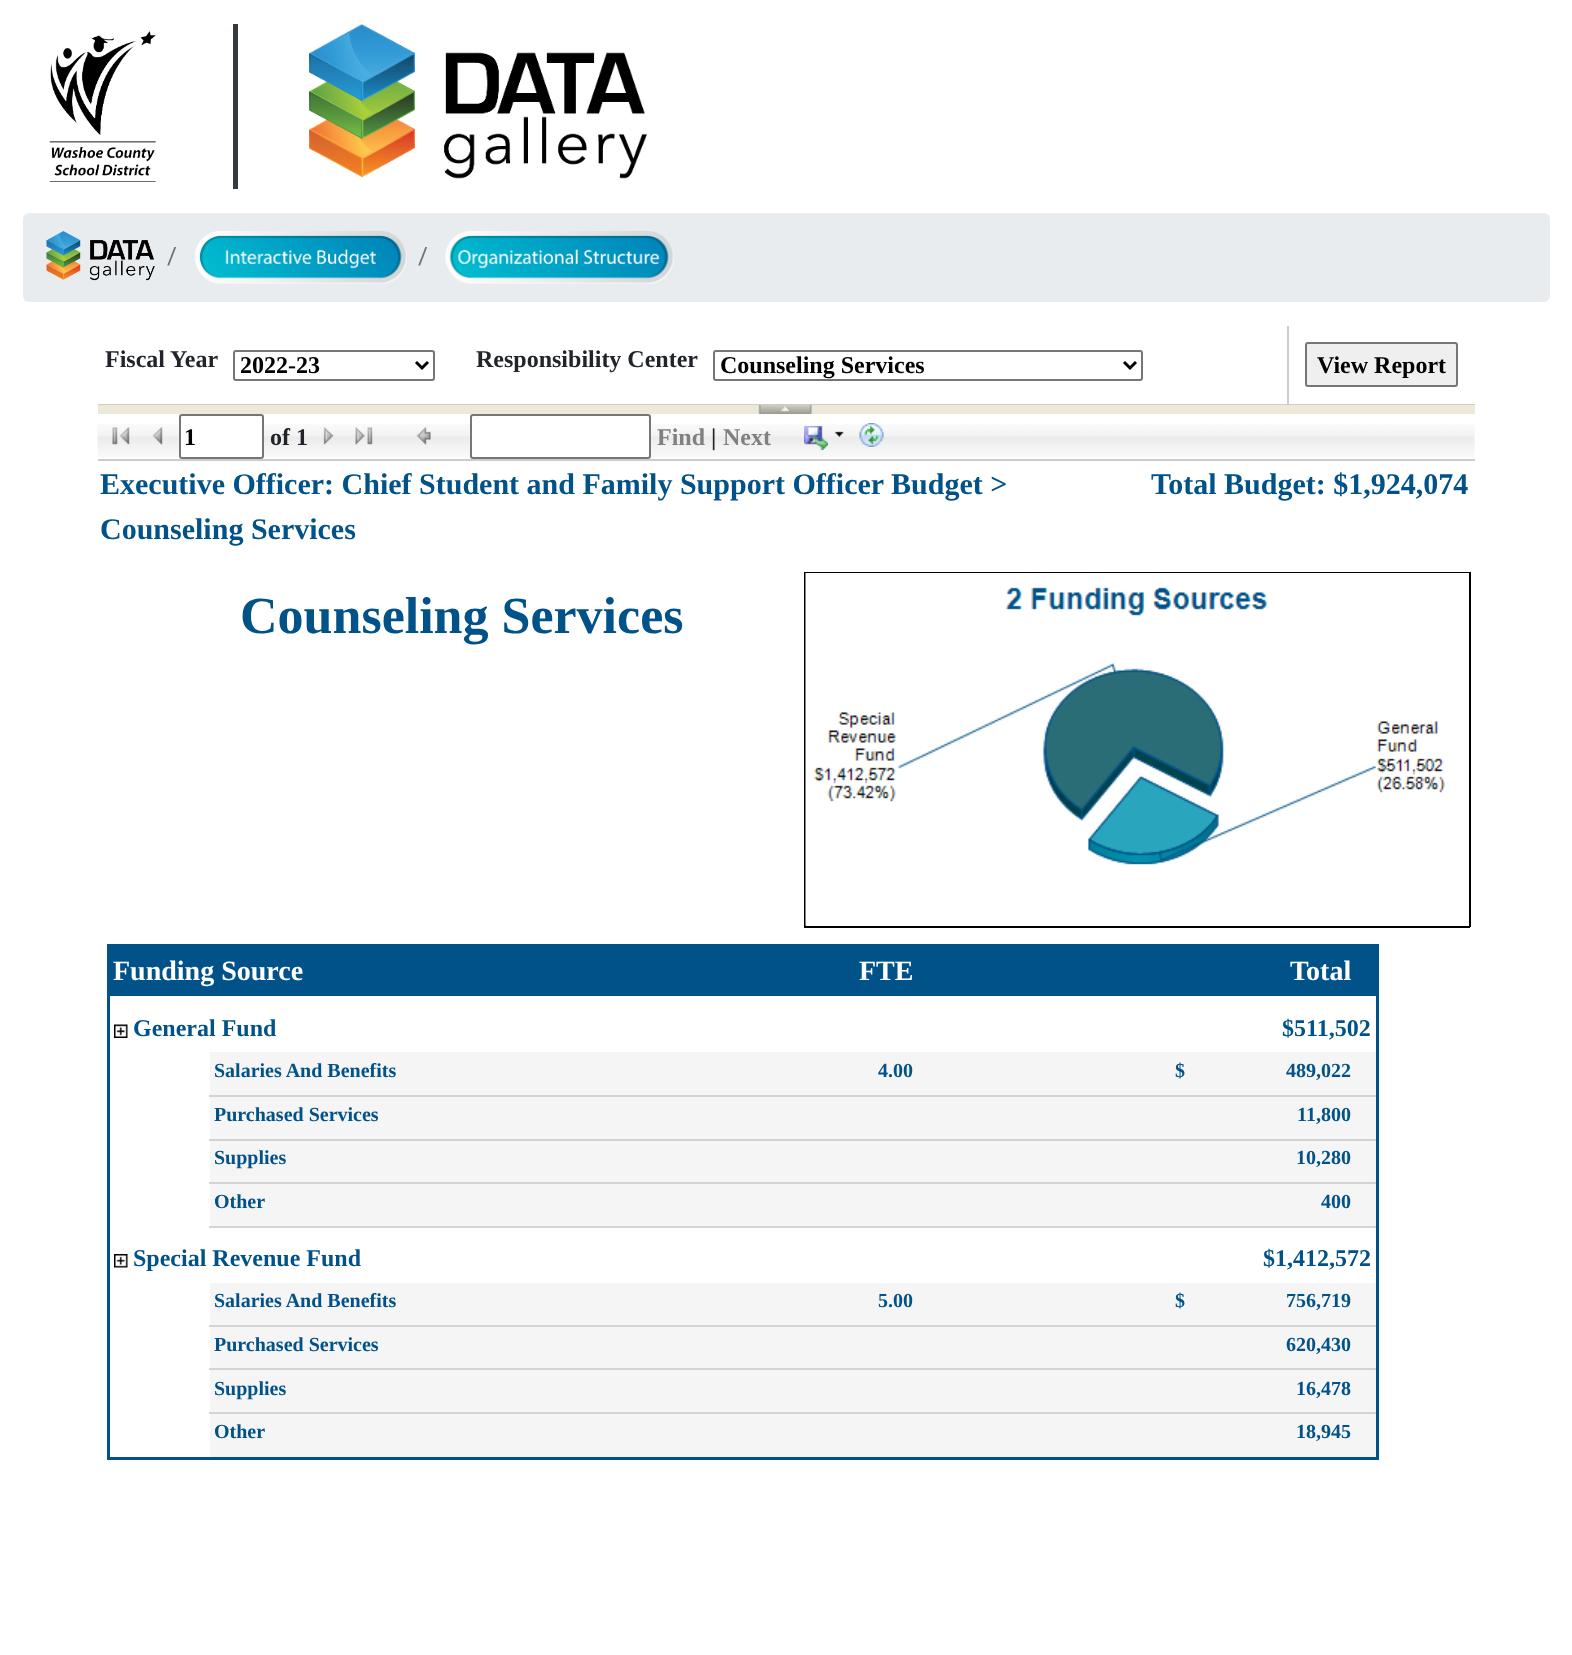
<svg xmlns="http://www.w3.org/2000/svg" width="1572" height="1655">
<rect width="100%" height="100%" fill="#fff"/>
<image x="49" y="31" width="107" height="151" href="media/1.png"/>
<rect x="233" y="24" width="5" height="165" fill="#343a40"/>
<image x="309" y="24" width="338" height="155" href="media/2.png"/>
<rect x="23" y="213" width="1527" height="89" rx="6" fill="#e9ecef"/>
<image x="46" y="231" width="109" height="50" href="media/3.png"/>
<text x="167" y="264" style="font-family:Roboto;font-size:24px;fill:#6c757d">/</text>
<image x="195" y="231" width="212" height="53" href="media/4.png"/>
<text x="418" y="264" style="font-family:Roboto;font-size:24px;fill:#6c757d">/</text>
<image x="445" y="231" width="229" height="53" href="media/5.png"/>
<rect x="98" y="404" width="1377" height="1" fill="#ccc"/>
<text x="105" y="367" style="font-family:Liberation Serif;font-size:24px;font-weight:bold;fill:#212529">Fiscal Year</text>
<rect x="234" y="351" width="200" height="29" rx="2" fill="none" stroke="#767676" stroke-width="2"/>
<path d="M416 362l6 6l6-6" fill="none" stroke="#000" stroke-width="3"/>
<text x="240" y="373" style="font-family:Liberation Serif;font-size:24px;font-weight:bold;fill:#000">2022-23</text>
<text x="476" y="367" style="font-family:Liberation Serif;font-size:24px;font-weight:bold;fill:#212529">Responsibility Center</text>
<rect x="714" y="351" width="428" height="29" rx="2" fill="none" stroke="#767676" stroke-width="2"/>
<path d="M1124 362l6 6l6-6" fill="none" stroke="#000" stroke-width="3"/>
<text x="720" y="373" style="font-family:Liberation Serif;font-size:24px;font-weight:bold;fill:#000">Counseling Services</text>
<rect x="1287" y="326" width="2" height="79" fill="#ccc"/>
<rect x="1306" y="343" width="151" height="43" rx="2" fill="#efefef" stroke="#767676" stroke-width="2"/>
<text x="1317" y="373" style="font-family:Liberation Serif;font-size:24px;font-weight:bold;fill:#000">View Report</text>
<rect x="98" y="405" width="1377" height="9" fill="#ece9d8"/>
<image x="758" y="405" width="55" height="9" href="media/6.png"/>
<image x="97" y="424" width="1378" height="34" href="media/7.png"/>
<rect x="98" y="459" width="1377" height="2" fill="#ccc"/>
<image x="112" y="427" width="18" height="18" href="media/8.png"/>
<image x="152" y="427" width="11" height="18" href="media/9.png"/>
<rect x="180" y="415" width="83" height="43" rx="2" fill="#fff" stroke="#767676" stroke-width="2"/>
<text x="184" y="445" style="font-family:Liberation Serif;font-size:24px;font-weight:bold;fill:#000">1</text>
<text x="270" y="445" style="font-family:Liberation Serif;font-size:24px;font-weight:bold;fill:#212529">of 1</text>
<image x="323" y="427" width="11" height="18" href="media/10.png"/>
<image x="355" y="427" width="18" height="18" href="media/11.png"/>
<image x="416" y="427" width="15" height="18" href="media/12.png"/>
<rect x="471" y="415" width="179" height="43" rx="2" fill="#fff" stroke="#767676" stroke-width="2"/>
<text x="657" y="445" style="font-family:Liberation Serif;font-size:24px;font-weight:bold;fill:#808080">Find</text>
<text x="711" y="445" style="font-family:Liberation Serif;font-size:24px;font-weight:bold;fill:#212529">|</text>
<text x="723" y="445" style="font-family:Liberation Serif;font-size:24px;font-weight:bold;fill:#808080">Next</text>
<image x="804" y="426" width="24" height="24" href="media/13.png"/>
<image x="835" y="431" width="9" height="6" href="media/14.png"/>
<image x="859" y="423" width="25" height="24" href="media/15.png"/>
<text x="100" y="494" style="font-family:Liberation Serif;font-size:30px;font-weight:bold;fill:#005288">Executive Officer: Chief Student and Family Support Officer Budget &gt;</text>
<text x="100" y="539" style="font-family:Liberation Serif;font-size:30px;font-weight:bold;fill:#005288">Counseling Services</text>
<text x="1151" y="494" style="font-family:Liberation Serif;font-size:30px;font-weight:bold;fill:#005288">Total Budget: $1,924,074</text>
<text x="240" y="633" style="font-family:Liberation Serif;font-size:52px;font-weight:bold;fill:#005288">Counseling Services</text>
<rect x="804" y="572" width="666" height="1" fill="#000"/>
<rect x="1469" y="572" width="2" height="355" fill="#000"/>
<rect x="804" y="926" width="666" height="2" fill="#000"/>
<rect x="804" y="572" width="2" height="355" fill="#000"/>
<image x="805" y="573" width="640" height="353" href="media/16.png"/>
<rect x="107" y="944" width="1272" height="3" fill="#005288"/>
<rect x="1376" y="944" width="3" height="516" fill="#005288"/>
<rect x="107" y="1457" width="1272" height="3" fill="#005288"/>
<rect x="107" y="944" width="3" height="516" fill="#005288"/>
<rect x="110" y="947" width="1266" height="49" fill="#005288"/>
<text x="113" y="980" style="font-family:Liberation Serif;font-size:28px;font-weight:bold;fill:#fff">Funding Source</text>
<text x="859" y="980" style="font-family:Liberation Serif;font-size:28px;font-weight:bold;fill:#fff">FTE</text>
<text x="1290" y="980" style="font-family:Liberation Serif;font-size:28px;font-weight:bold;fill:#fff">Total</text>
<image x="114" y="1024" width="14" height="14" href="media/17.png"/>
<text x="133" y="1036" style="font-family:Liberation Serif;font-size:24px;font-weight:bold;fill:#005288">General Fund</text>
<text x="1282" y="1036" style="font-family:Liberation Serif;font-size:24px;font-weight:bold;fill:#005288">$511,502</text>
<rect x="210" y="1052" width="1166" height="43" fill="#f5f5f5"/>
<rect x="209" y="1095" width="522" height="2" fill="#d3d3d3"/>
<text x="214" y="1077" style="font-family:Liberation Serif;font-size:20px;font-weight:bold;fill:#005288">Salaries And Benefits</text>
<rect x="210" y="1097" width="1166" height="42" fill="#f5f5f5"/>
<rect x="209" y="1139" width="522" height="2" fill="#d3d3d3"/>
<text x="214" y="1121" style="font-family:Liberation Serif;font-size:20px;font-weight:bold;fill:#005288">Purchased Services</text>
<rect x="210" y="1141" width="1166" height="41" fill="#f5f5f5"/>
<rect x="209" y="1182" width="522" height="2" fill="#d3d3d3"/>
<text x="214" y="1164" style="font-family:Liberation Serif;font-size:20px;font-weight:bold;fill:#005288">Supplies</text>
<rect x="210" y="1184" width="1166" height="42" fill="#f5f5f5"/>
<rect x="209" y="1226" width="522" height="2" fill="#d3d3d3"/>
<text x="214" y="1208" style="font-family:Liberation Serif;font-size:20px;font-weight:bold;fill:#005288">Other</text>
<text x="878" y="1077" style="font-family:Liberation Serif;font-size:20px;font-weight:bold;fill:#005288">4.00</text>
<text x="1175" y="1077" style="font-family:Liberation Serif;font-size:20px;font-weight:bold;fill:#005288">$</text>
<rect x="729" y="1095" width="647" height="2" fill="#d3d3d3"/>
<text x="1286" y="1077" style="font-family:Liberation Serif;font-size:20px;font-weight:bold;fill:#005288">489,022</text>
<rect x="729" y="1139" width="647" height="2" fill="#d3d3d3"/>
<text x="1297" y="1121" style="font-family:Liberation Serif;font-size:20px;font-weight:bold;fill:#005288">11,800</text>
<rect x="729" y="1182" width="647" height="2" fill="#d3d3d3"/>
<text x="1296" y="1164" style="font-family:Liberation Serif;font-size:20px;font-weight:bold;fill:#005288">10,280</text>
<rect x="729" y="1226" width="647" height="2" fill="#d3d3d3"/>
<text x="1321" y="1208" style="font-family:Liberation Serif;font-size:20px;font-weight:bold;fill:#005288">400</text>
<image x="114" y="1254" width="14" height="14" href="media/18.png"/>
<text x="133" y="1266" style="font-family:Liberation Serif;font-size:24px;font-weight:bold;fill:#005288">Special Revenue Fund</text>
<text x="1263" y="1266" style="font-family:Liberation Serif;font-size:24px;font-weight:bold;fill:#005288">$1,412,572</text>
<rect x="210" y="1283" width="1166" height="42" fill="#f5f5f5"/>
<rect x="209" y="1325" width="522" height="2" fill="#d3d3d3"/>
<text x="214" y="1307" style="font-family:Liberation Serif;font-size:20px;font-weight:bold;fill:#005288">Salaries And Benefits</text>
<rect x="210" y="1327" width="1166" height="41" fill="#f5f5f5"/>
<rect x="209" y="1368" width="522" height="2" fill="#d3d3d3"/>
<text x="214" y="1351" style="font-family:Liberation Serif;font-size:20px;font-weight:bold;fill:#005288">Purchased Services</text>
<rect x="210" y="1370" width="1166" height="42" fill="#f5f5f5"/>
<rect x="209" y="1412" width="522" height="2" fill="#d3d3d3"/>
<text x="214" y="1395" style="font-family:Liberation Serif;font-size:20px;font-weight:bold;fill:#005288">Supplies</text>
<rect x="210" y="1414" width="1166" height="43" fill="#f5f5f5"/>
<text x="214" y="1438" style="font-family:Liberation Serif;font-size:20px;font-weight:bold;fill:#005288">Other</text>
<text x="878" y="1307" style="font-family:Liberation Serif;font-size:20px;font-weight:bold;fill:#005288">5.00</text>
<text x="1175" y="1307" style="font-family:Liberation Serif;font-size:20px;font-weight:bold;fill:#005288">$</text>
<rect x="729" y="1325" width="647" height="2" fill="#d3d3d3"/>
<text x="1286" y="1307" style="font-family:Liberation Serif;font-size:20px;font-weight:bold;fill:#005288">756,719</text>
<rect x="729" y="1368" width="647" height="2" fill="#d3d3d3"/>
<text x="1286" y="1351" style="font-family:Liberation Serif;font-size:20px;font-weight:bold;fill:#005288">620,430</text>
<rect x="729" y="1412" width="647" height="2" fill="#d3d3d3"/>
<text x="1296" y="1395" style="font-family:Liberation Serif;font-size:20px;font-weight:bold;fill:#005288">16,478</text>
<text x="1296" y="1438" style="font-family:Liberation Serif;font-size:20px;font-weight:bold;fill:#005288">18,945</text>
</svg>
